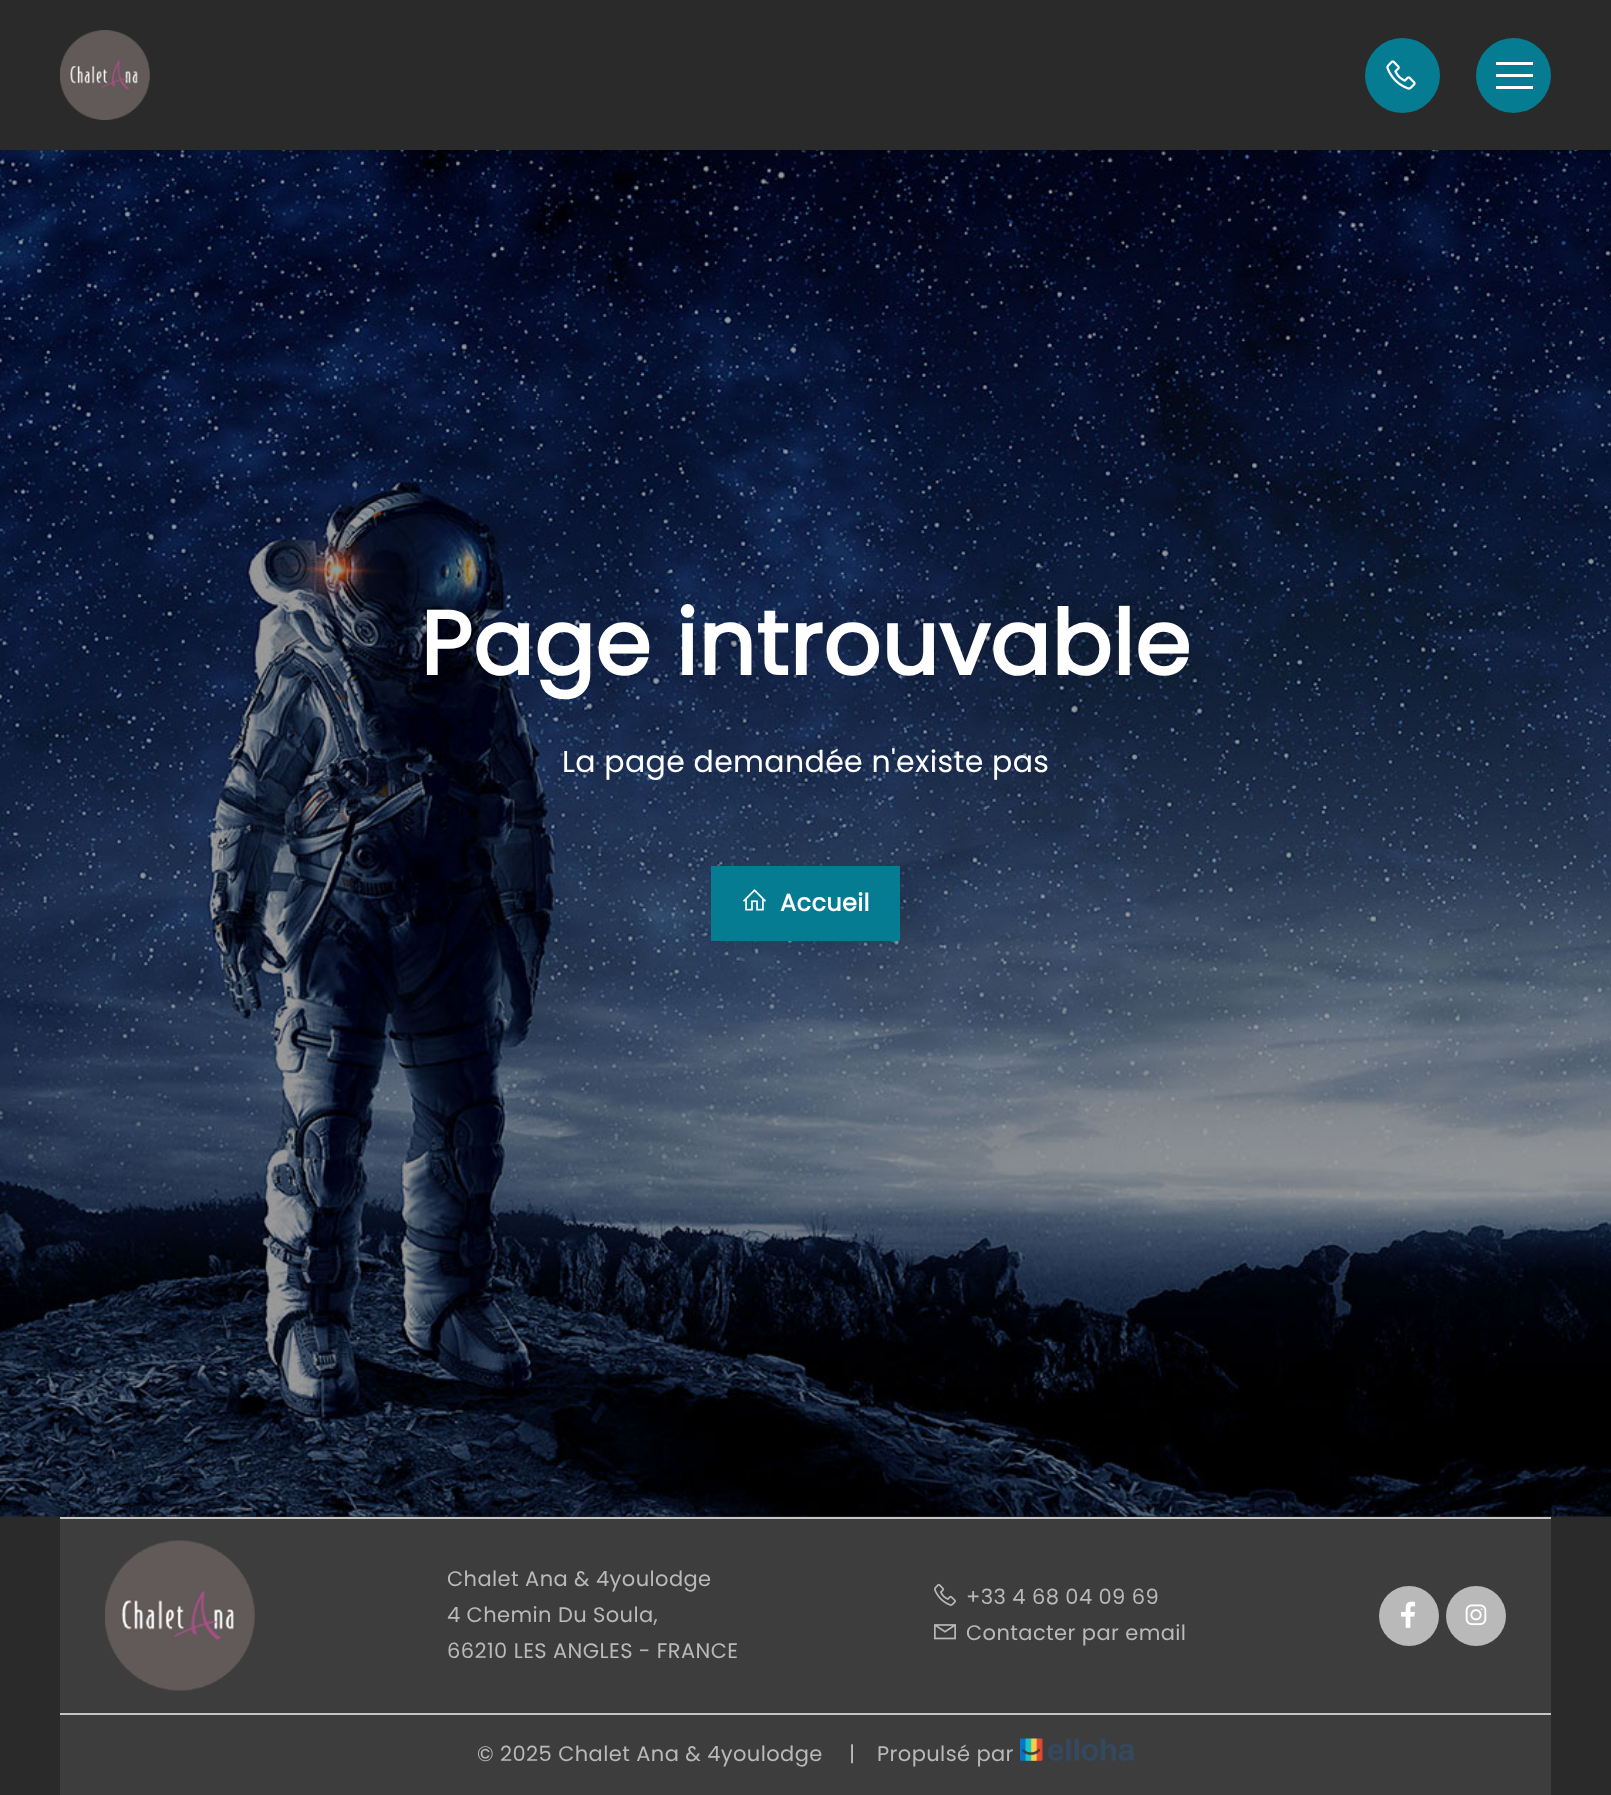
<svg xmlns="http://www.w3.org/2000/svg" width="1611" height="1795">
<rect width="100%" height="100%" fill="#2a2a2a"/>
<image x="0" y="150" width="1611" height="1367" href="media/1.png"/>
<image x="60" y="30" width="90" height="90" href="media/2.png"/>
<circle cx="1402.5" cy="75.5" r="37.5" fill="#067c93"/>
<image x="1386" y="60" width="30" height="30" href="media/3.png"/>
<circle cx="1513.5" cy="75.5" r="37.5" fill="#067c93"/>
<rect x="1496" y="74" width="37" height="3" fill="#fff"/>
<rect x="1496" y="62" width="37" height="3" fill="#fff"/>
<rect x="1496" y="86" width="37" height="3" fill="#fff"/>
<text x="420" y="675" style="font-family:Poppins;font-size:90px;font-weight:bold;letter-spacing:0.35px;fill:#fff">Page introuvable</text>
<text x="562" y="772" style="font-family:Poppins;font-size:30px;letter-spacing:0.35px;fill:#fff">La page demandée n'existe pas</text>
<rect x="711" y="866" width="189" height="75" fill="#067c93"/>
<image x="743" y="889" width="23" height="22" href="media/4.png"/>
<text x="780" y="911" style="font-family:Poppins;font-size:24px;font-weight:bold;letter-spacing:0.35px;fill:#fff">Accueil</text>
<rect x="60" y="1519" width="1491" height="194" fill="#3d3d3d"/>
<rect x="60" y="1517" width="1491" height="2" fill="#c5c5c5"/>
<rect x="60" y="1713" width="1491" height="2" fill="#c5c5c5"/>
<image x="105" y="1540" width="150" height="151" href="media/5.png"/>
<text x="447" y="1586" style="font-family:Poppins;font-size:21px;letter-spacing:0.4px;fill:#b9b9b9">Chalet Ana &amp; 4youlodge</text>
<text x="447" y="1622" style="font-family:Poppins;font-size:21px;letter-spacing:0.4px;fill:#b9b9b9">4 Chemin Du Soula,</text>
<text x="447" y="1658" style="font-family:Poppins;font-size:21px;letter-spacing:0.4px;fill:#b9b9b9">66210 LES ANGLES - FRANCE</text>
<image x="934" y="1583" width="22" height="23" href="media/6.png"/>
<text x="966" y="1604" style="font-family:Poppins;font-size:21px;letter-spacing:0.4px;fill:#b9b9b9">+33 4 68 04 09 69</text>
<image x="934" y="1624" width="22" height="16" href="media/7.png"/>
<text x="966" y="1640" style="font-family:Poppins;font-size:21px;letter-spacing:0.4px;fill:#b9b9b9">Contacter par email</text>
<circle cx="1409" cy="1616" r="30" fill="#b9b9b9"/>
<image x="1401" y="1601" width="15" height="27" href="media/8.png"/>
<circle cx="1476" cy="1616" r="30" fill="#b9b9b9"/>
<image x="1465" y="1604" width="22" height="22" href="media/9.png"/>
<rect x="60" y="1715" width="1491" height="80" fill="#3d3d3d"/>
<text x="477" y="1761" style="font-family:Poppins;font-size:21px;letter-spacing:0.4px;fill:#b9b9b9">© 2025 Chalet Ana &amp; 4youlodge</text>
<text x="849" y="1761" style="font-family:Poppins;font-size:21px;letter-spacing:0.4px;fill:#b9b9b9">|</text>
<text x="877" y="1761" style="font-family:Poppins;font-size:21px;letter-spacing:0.4px;fill:#b9b9b9">Propulsé par</text>
<image x="1020" y="1738" width="114" height="23" href="media/10.png"/>
</svg>
